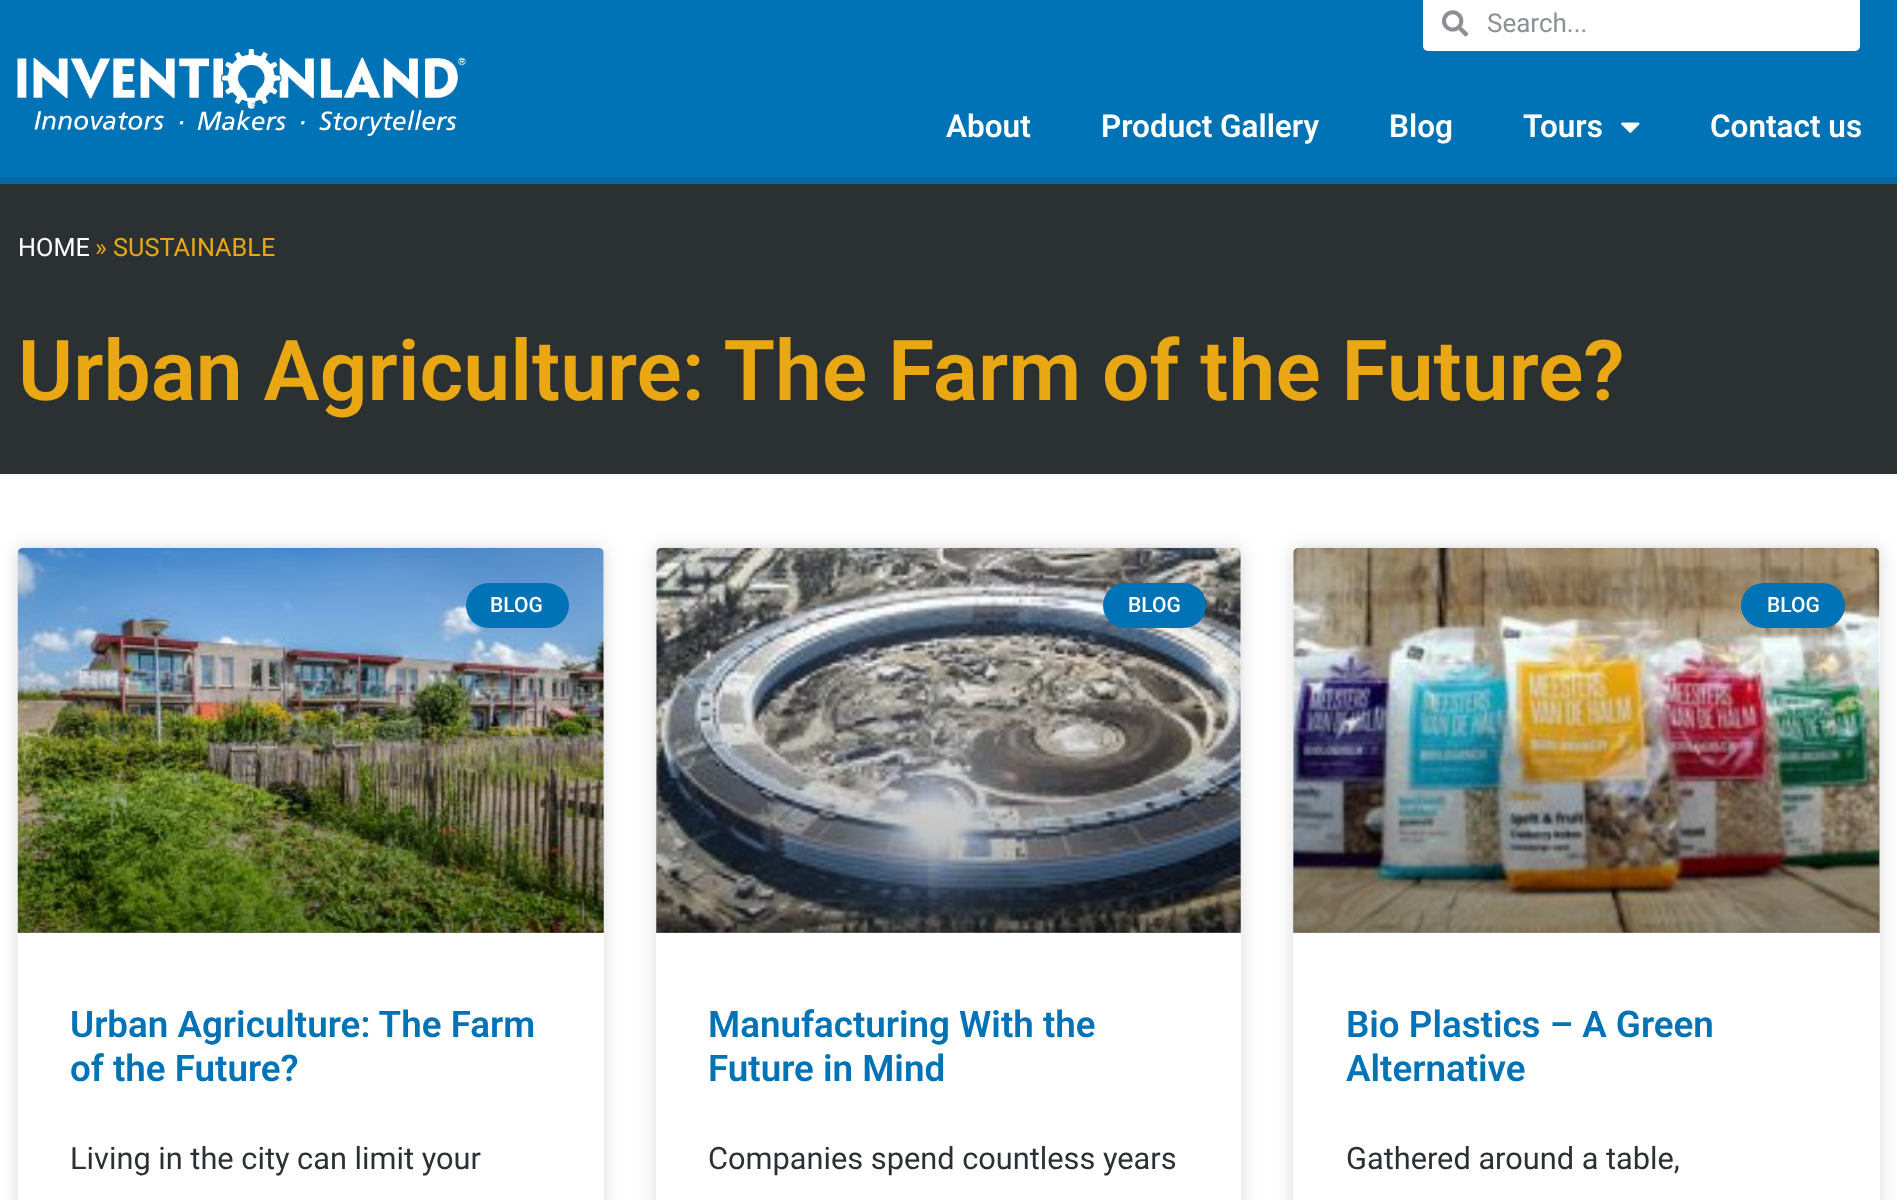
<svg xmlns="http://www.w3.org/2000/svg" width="1897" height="1200">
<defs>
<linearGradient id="g1" gradientUnits="userSpaceOnUse" x1="311" y1="933" x2="311" y2="548"><stop offset="0" stop-color="#000" stop-opacity="0.35"/><stop offset="0.75" stop-color="#000" stop-opacity="0"/></linearGradient>
<linearGradient id="g2" gradientUnits="userSpaceOnUse" x1="949" y1="933" x2="949" y2="548"><stop offset="0" stop-color="#000" stop-opacity="0.35"/><stop offset="0.75" stop-color="#000" stop-opacity="0"/></linearGradient>
<linearGradient id="g3" gradientUnits="userSpaceOnUse" x1="1586" y1="933" x2="1586" y2="548"><stop offset="0" stop-color="#000" stop-opacity="0.35"/><stop offset="0.75" stop-color="#000" stop-opacity="0"/></linearGradient>
</defs>
<rect width="100%" height="100%" fill="#fff"/>
<rect y="177" width="1897" height="7" fill="#0567a4"/>
<rect width="1897" height="177" fill="#0072b6"/>
<image x="17" y="49" width="449" height="87" href="media/1.png"/>
<rect x="1423" y="-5" width="437" height="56" rx="5" fill="#fff"/>
<image x="1442" y="10" width="27" height="27" href="media/2.png"/>
<text x="1487" y="32" style="font-family:Roboto;font-size:26px;fill:#8c8f93">Search...</text>
<text x="946" y="137" style="font-family:Roboto;font-size:31.5px;font-weight:600;fill:#fff">About</text>
<text x="1101" y="137" style="font-family:Roboto;font-size:31.5px;font-weight:600;fill:#fff">Product Gallery</text>
<text x="1389" y="137" style="font-family:Roboto;font-size:31.5px;font-weight:600;fill:#fff">Blog</text>
<text x="1523" y="137" style="font-family:Roboto;font-size:31.5px;font-weight:600;fill:#fff">Tours</text>
<image x="1621" y="122" width="19" height="11" href="media/3.png"/>
<text x="1710" y="137" style="font-family:Roboto;font-size:31.5px;font-weight:600;fill:#fff">Contact us</text>
<rect y="184" width="1897" height="290" fill="#2b3133"/>
<text x="18" y="256" style="font-family:Roboto;font-size:25.25px;fill:#fff">HOME</text>
<text x="95" y="256" style="font-family:Roboto;font-size:25.25px;fill:#e8a713">» SUSTAINABLE</text>
<text x="18" y="400" style="font-family:Roboto;font-size:84px;font-weight:600;fill:#e8a713">Urban Agriculture: The Farm of the Future?</text>
<rect x="18" y="548" width="586" height="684" rx="5" fill="#00000026" filter="blur(9px)"/>
<rect x="18" y="548" width="586" height="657" rx="5" fill="#fff"/>
<image x="17" y="547" width="587" height="386" href="media/4.png"/>
<rect x="18" y="662" width="586" height="271" fill="url(#g1)"/>
<rect x="466" y="583" width="103" height="45" rx="22.5" fill="#0072b6"/>
<text x="490" y="612" style="font-family:Roboto;font-size:21px;font-weight:500;fill:#fff">BLOG</text>
<text x="70" y="1037" style="font-family:Roboto;font-size:36.75px;font-weight:600;fill:#0072b6">Urban Agriculture: The Farm</text>
<text x="70" y="1081" style="font-family:Roboto;font-size:36.75px;font-weight:600;fill:#0072b6">of the Future?</text>
<text x="70" y="1169" style="font-family:Roboto;font-size:30.75px;fill:#2b3133">Living in the city can limit your</text>
<rect x="656" y="548" width="585" height="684" rx="5" fill="#00000026" filter="blur(9px)"/>
<rect x="656" y="548" width="585" height="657" rx="5" fill="#fff"/>
<image x="656" y="547" width="585" height="386" href="media/5.png"/>
<rect x="656" y="662" width="585" height="271" fill="url(#g2)"/>
<rect x="1103" y="583" width="103" height="45" rx="22.5" fill="#0072b6"/>
<text x="1128" y="612" style="font-family:Roboto;font-size:21px;font-weight:500;fill:#fff">BLOG</text>
<text x="708" y="1037" style="font-family:Roboto;font-size:36.75px;font-weight:600;fill:#0072b6">Manufacturing With the</text>
<text x="708" y="1081" style="font-family:Roboto;font-size:36.75px;font-weight:600;fill:#0072b6">Future in Mind</text>
<text x="708" y="1169" style="font-family:Roboto;font-size:30.75px;fill:#2b3133">Companies spend countless years</text>
<rect x="1293" y="548" width="587" height="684" rx="5" fill="#00000026" filter="blur(9px)"/>
<rect x="1293" y="548" width="587" height="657" rx="5" fill="#fff"/>
<image x="1293" y="547" width="587" height="386" href="media/6.png"/>
<rect x="1293" y="662" width="587" height="271" fill="url(#g3)"/>
<rect x="1741" y="583" width="104" height="45" rx="22.5" fill="#0072b6"/>
<text x="1767" y="612" style="font-family:Roboto;font-size:21px;font-weight:500;fill:#fff">BLOG</text>
<text x="1346" y="1037" style="font-family:Roboto;font-size:36.75px;font-weight:600;fill:#0072b6">Bio Plastics – A Green</text>
<text x="1346" y="1081" style="font-family:Roboto;font-size:36.75px;font-weight:600;fill:#0072b6">Alternative</text>
<text x="1346" y="1169" style="font-family:Roboto;font-size:30.75px;fill:#2b3133">Gathered around a table,</text>
</svg>
